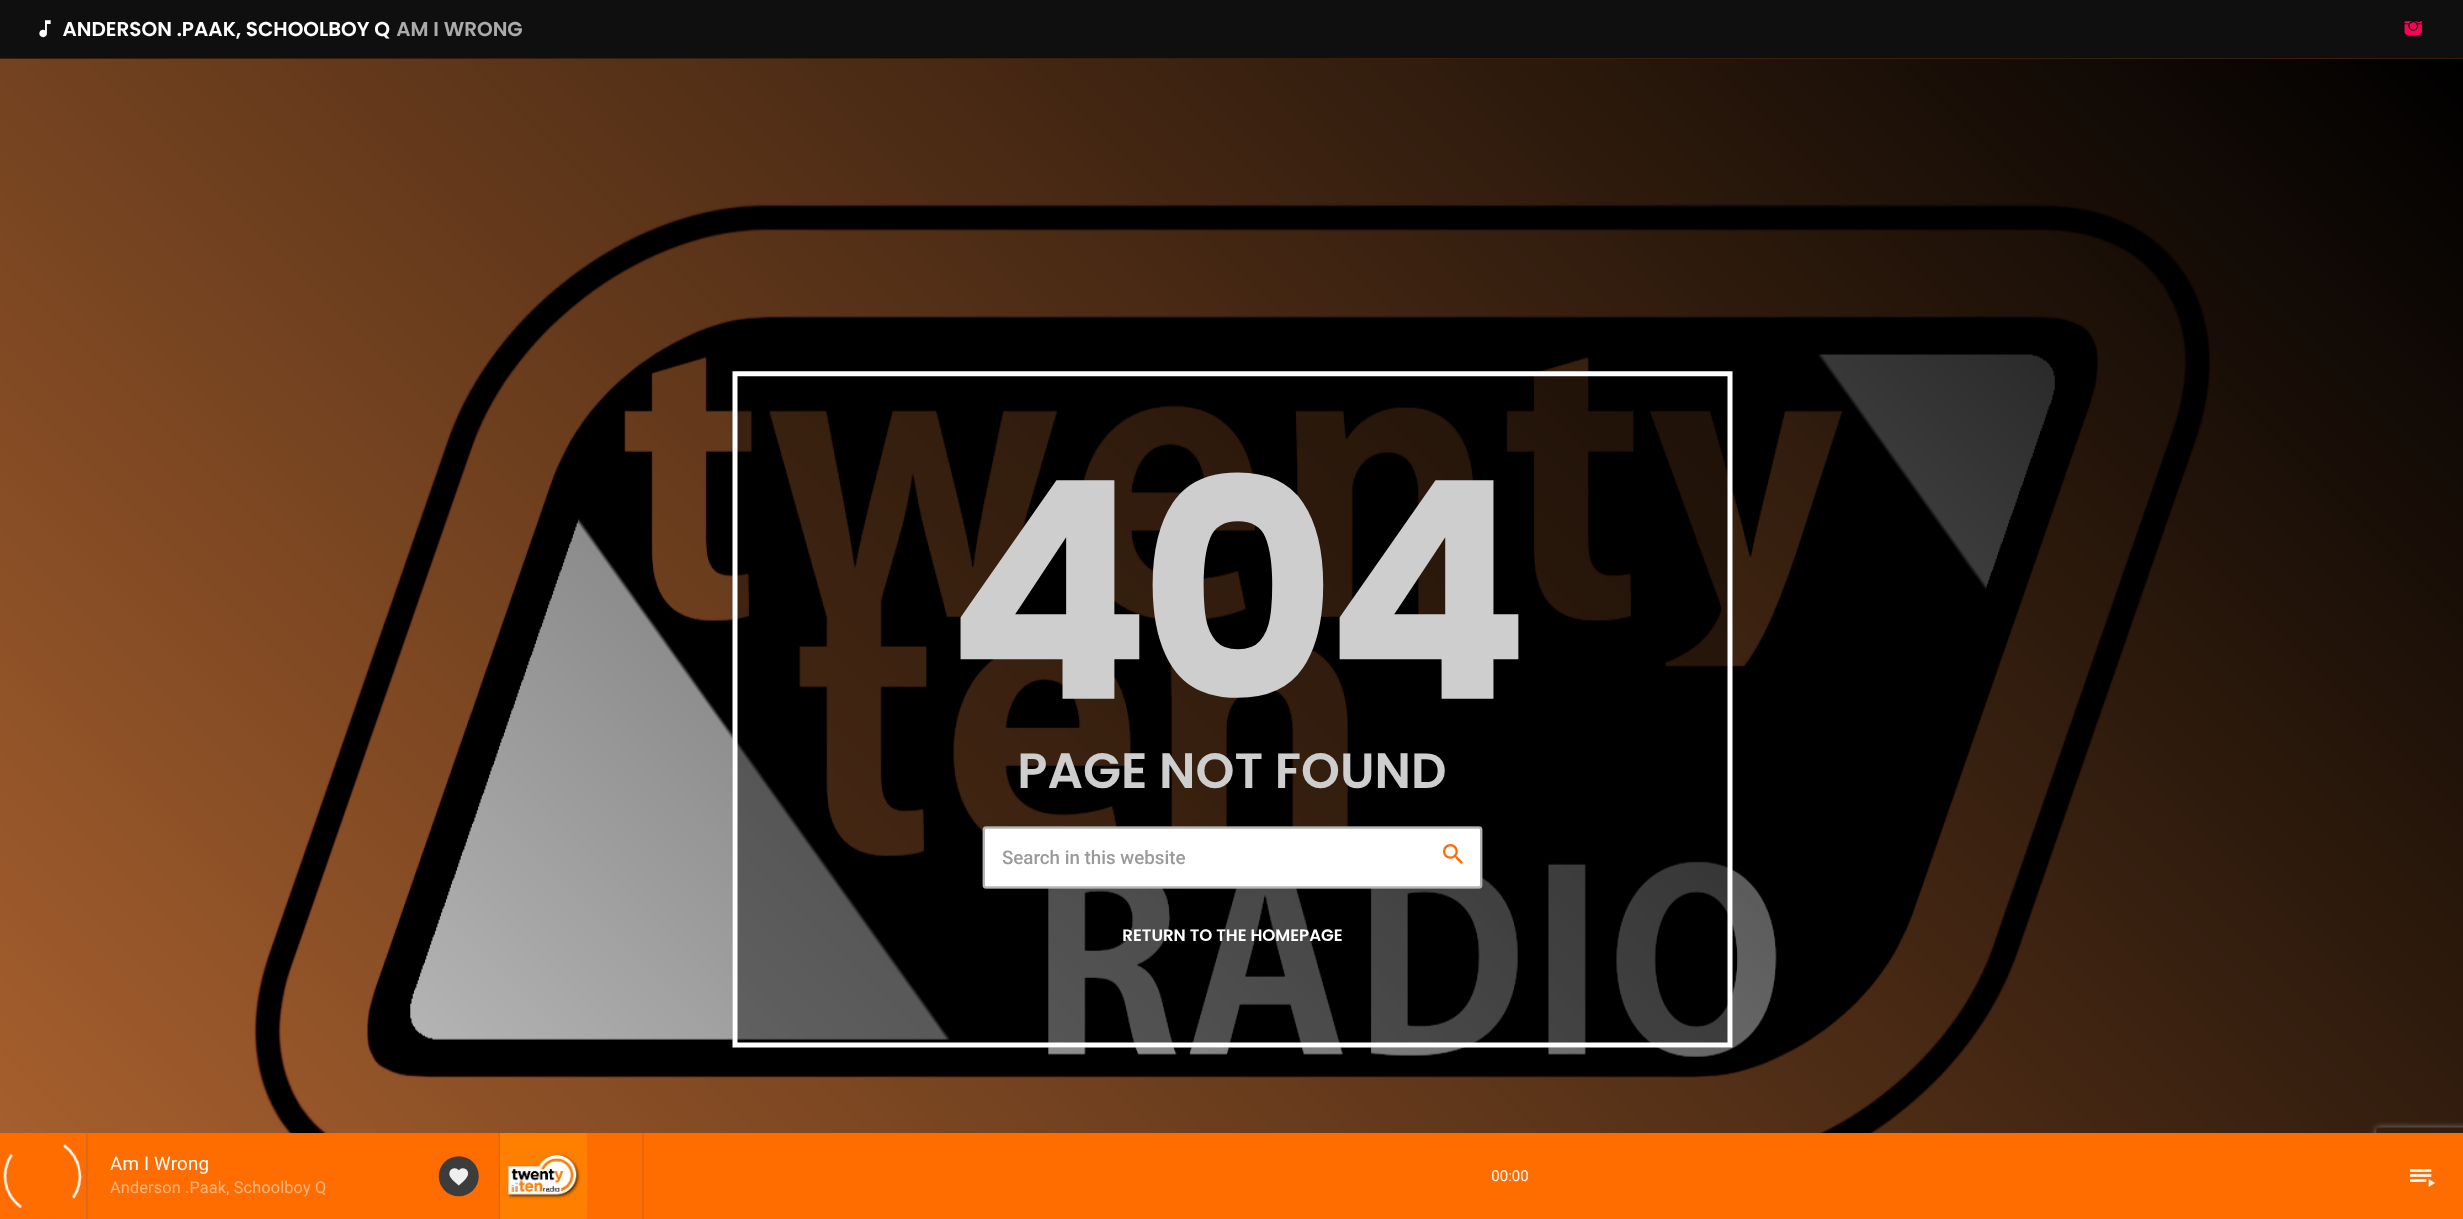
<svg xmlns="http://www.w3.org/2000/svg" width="2463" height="1219">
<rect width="100%" height="100%" fill="#fff"/>
<image x="0" y="0" width="2463" height="1219" href="media/1.png"/>
</svg>
